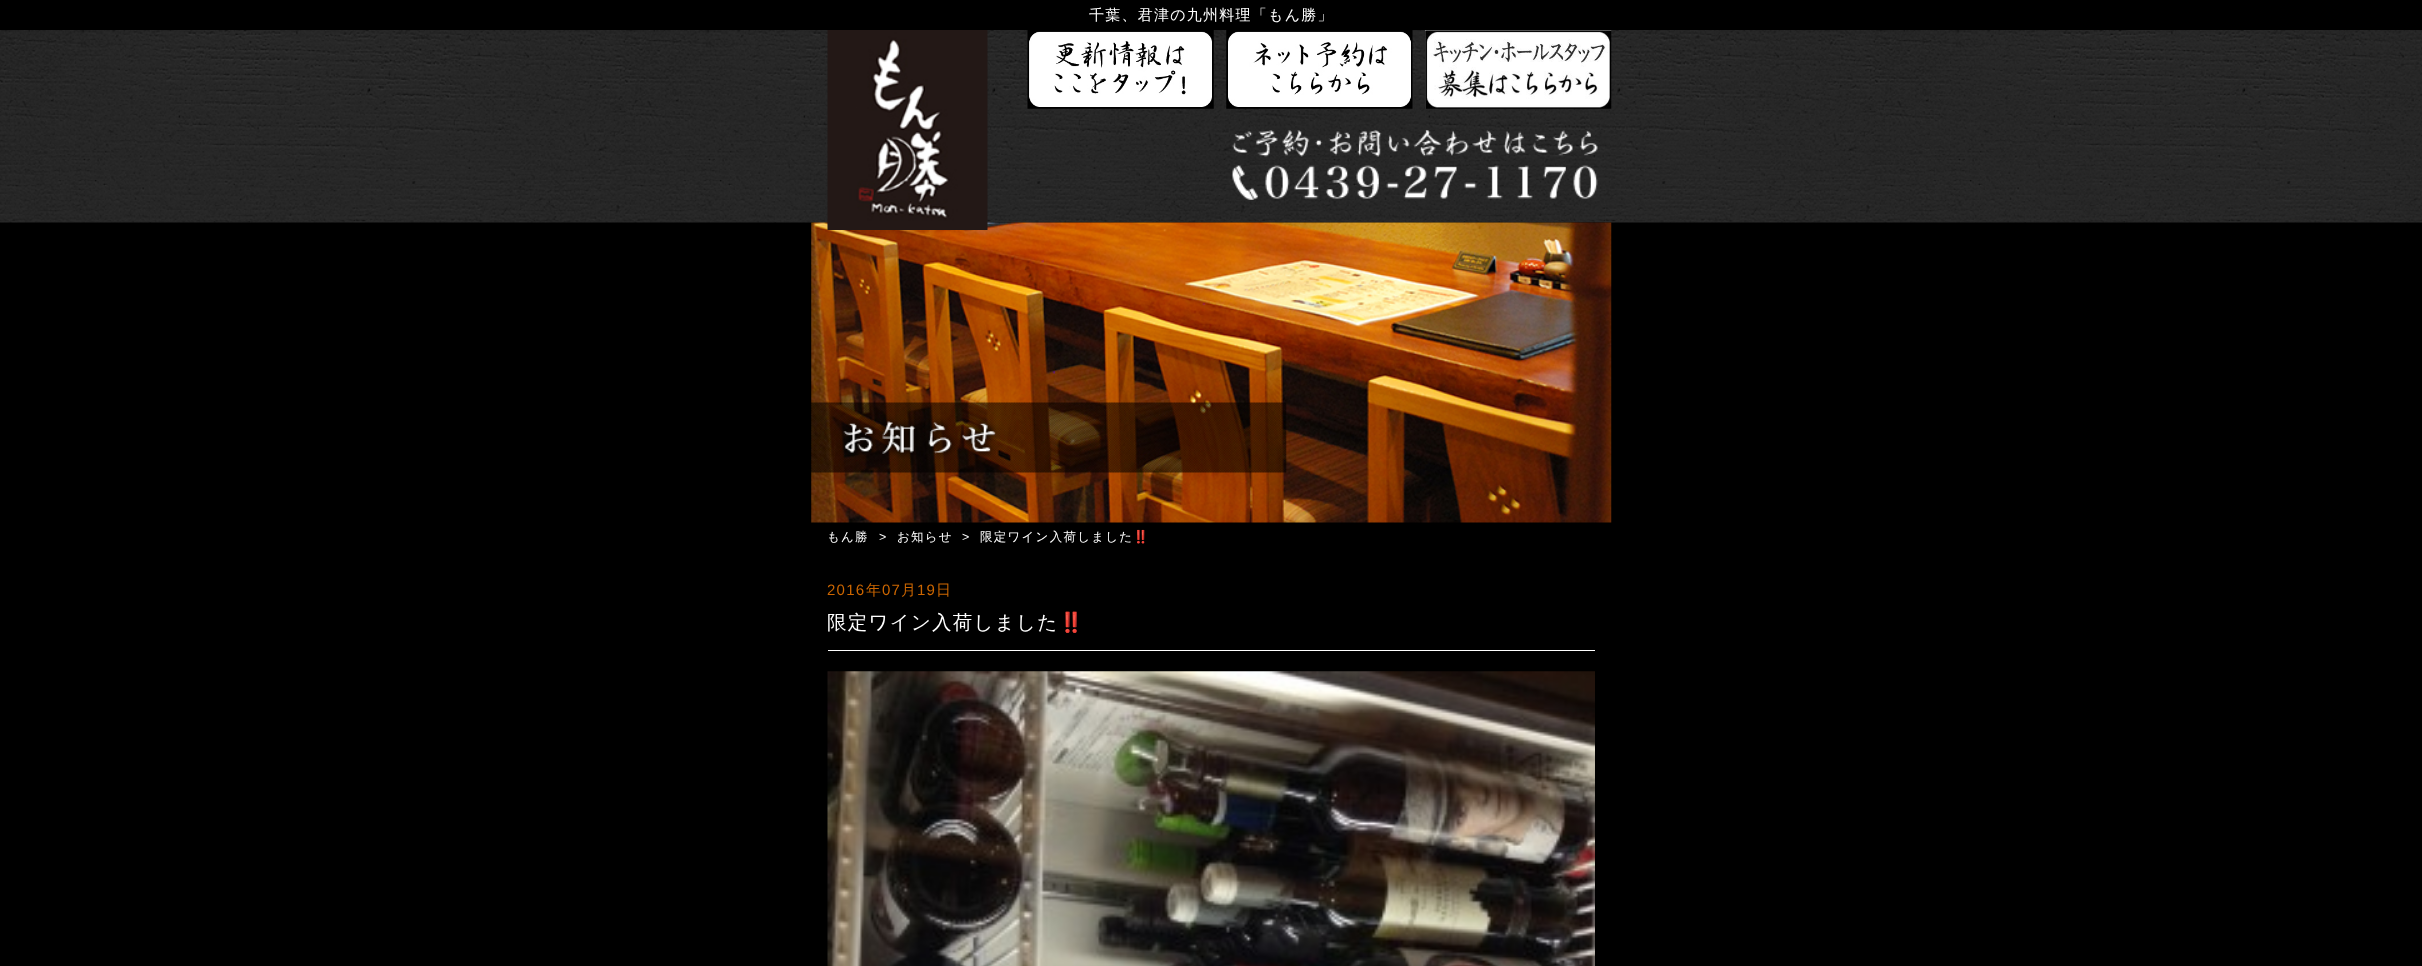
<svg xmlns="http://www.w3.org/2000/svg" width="2422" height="966">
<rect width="100%" height="100%" fill="#000"/>
<text x="1089" y="20" style="font-family:WenQuanYi Zen Hei;font-size:15px;font-weight:500;letter-spacing:1.25px;fill:#fff">千葉、君津の九州料理「もん勝」</text>
<image x="0" y="30" width="2422" height="193" href="media/1.png"/>
<image x="811" y="222" width="801" height="301" href="media/7.png"/>
<image x="827" y="30" width="161" height="200" href="media/2.png"/>
<image x="1027" y="30" width="187" height="79" href="media/3.png"/>
<image x="1226" y="30" width="187" height="79" href="media/4.png"/>
<image x="1425" y="30" width="187" height="79" href="media/5.png"/>
<image x="1232" y="130" width="366" height="70" href="media/6.png"/>
<text x="827" y="541" style="font-family:WenQuanYi Zen Hei;font-size:12.5px;font-weight:500;letter-spacing:1.25px;fill:#fff">もん勝</text>
<text x="879" y="541" style="font-family:Liberation Sans;font-size:12.5px;letter-spacing:1.25px;fill:#fff">&gt;</text>
<text x="897" y="541" style="font-family:WenQuanYi Zen Hei;font-size:12.5px;font-weight:500;letter-spacing:1.25px;fill:#fff">お知らせ</text>
<text x="962" y="541" style="font-family:Liberation Sans;font-size:12.5px;letter-spacing:1.25px;fill:#fff">&gt;</text>
<text x="980" y="541" style="font-family:WenQuanYi Zen Hei;font-size:12.5px;font-weight:500;letter-spacing:1.25px;fill:#fff">限定ワイン入荷しました</text>
<text x="1133" y="541" style="font-family:Noto Color Emoji;font-size:12.5px;letter-spacing:1.25px;fill:#fff">‼️</text>
<text x="827" y="595" style="font-family:Liberation Sans;font-size:15px;letter-spacing:1.25px;fill:#c60">2016</text>
<text x="866" y="595" style="font-family:WenQuanYi Zen Hei;font-size:15px;font-weight:500;letter-spacing:1.25px;fill:#c60">年</text>
<text x="882" y="595" style="font-family:Liberation Sans;font-size:15px;letter-spacing:1.25px;fill:#c60">07</text>
<text x="901" y="595" style="font-family:WenQuanYi Zen Hei;font-size:15px;font-weight:500;letter-spacing:1.25px;fill:#c60">月</text>
<text x="917" y="595" style="font-family:Liberation Sans;font-size:15px;letter-spacing:1.25px;fill:#c60">19</text>
<text x="936" y="595" style="font-family:WenQuanYi Zen Hei;font-size:15px;font-weight:500;letter-spacing:1.25px;fill:#c60">日</text>
<rect x="828" y="650" width="767" height="1" fill="#fff"/>
<text x="827" y="629" style="font-family:WenQuanYi Zen Hei;font-size:19.5px;font-weight:500;letter-spacing:1.25px;fill:#fff">限定ワイン入荷しました</text>
<text x="1059" y="629" style="font-family:Noto Color Emoji;font-size:19.5px;letter-spacing:1.25px;fill:#fff">‼️</text>
<image x="827" y="671" width="768" height="295" href="media/8.png"/>
</svg>
